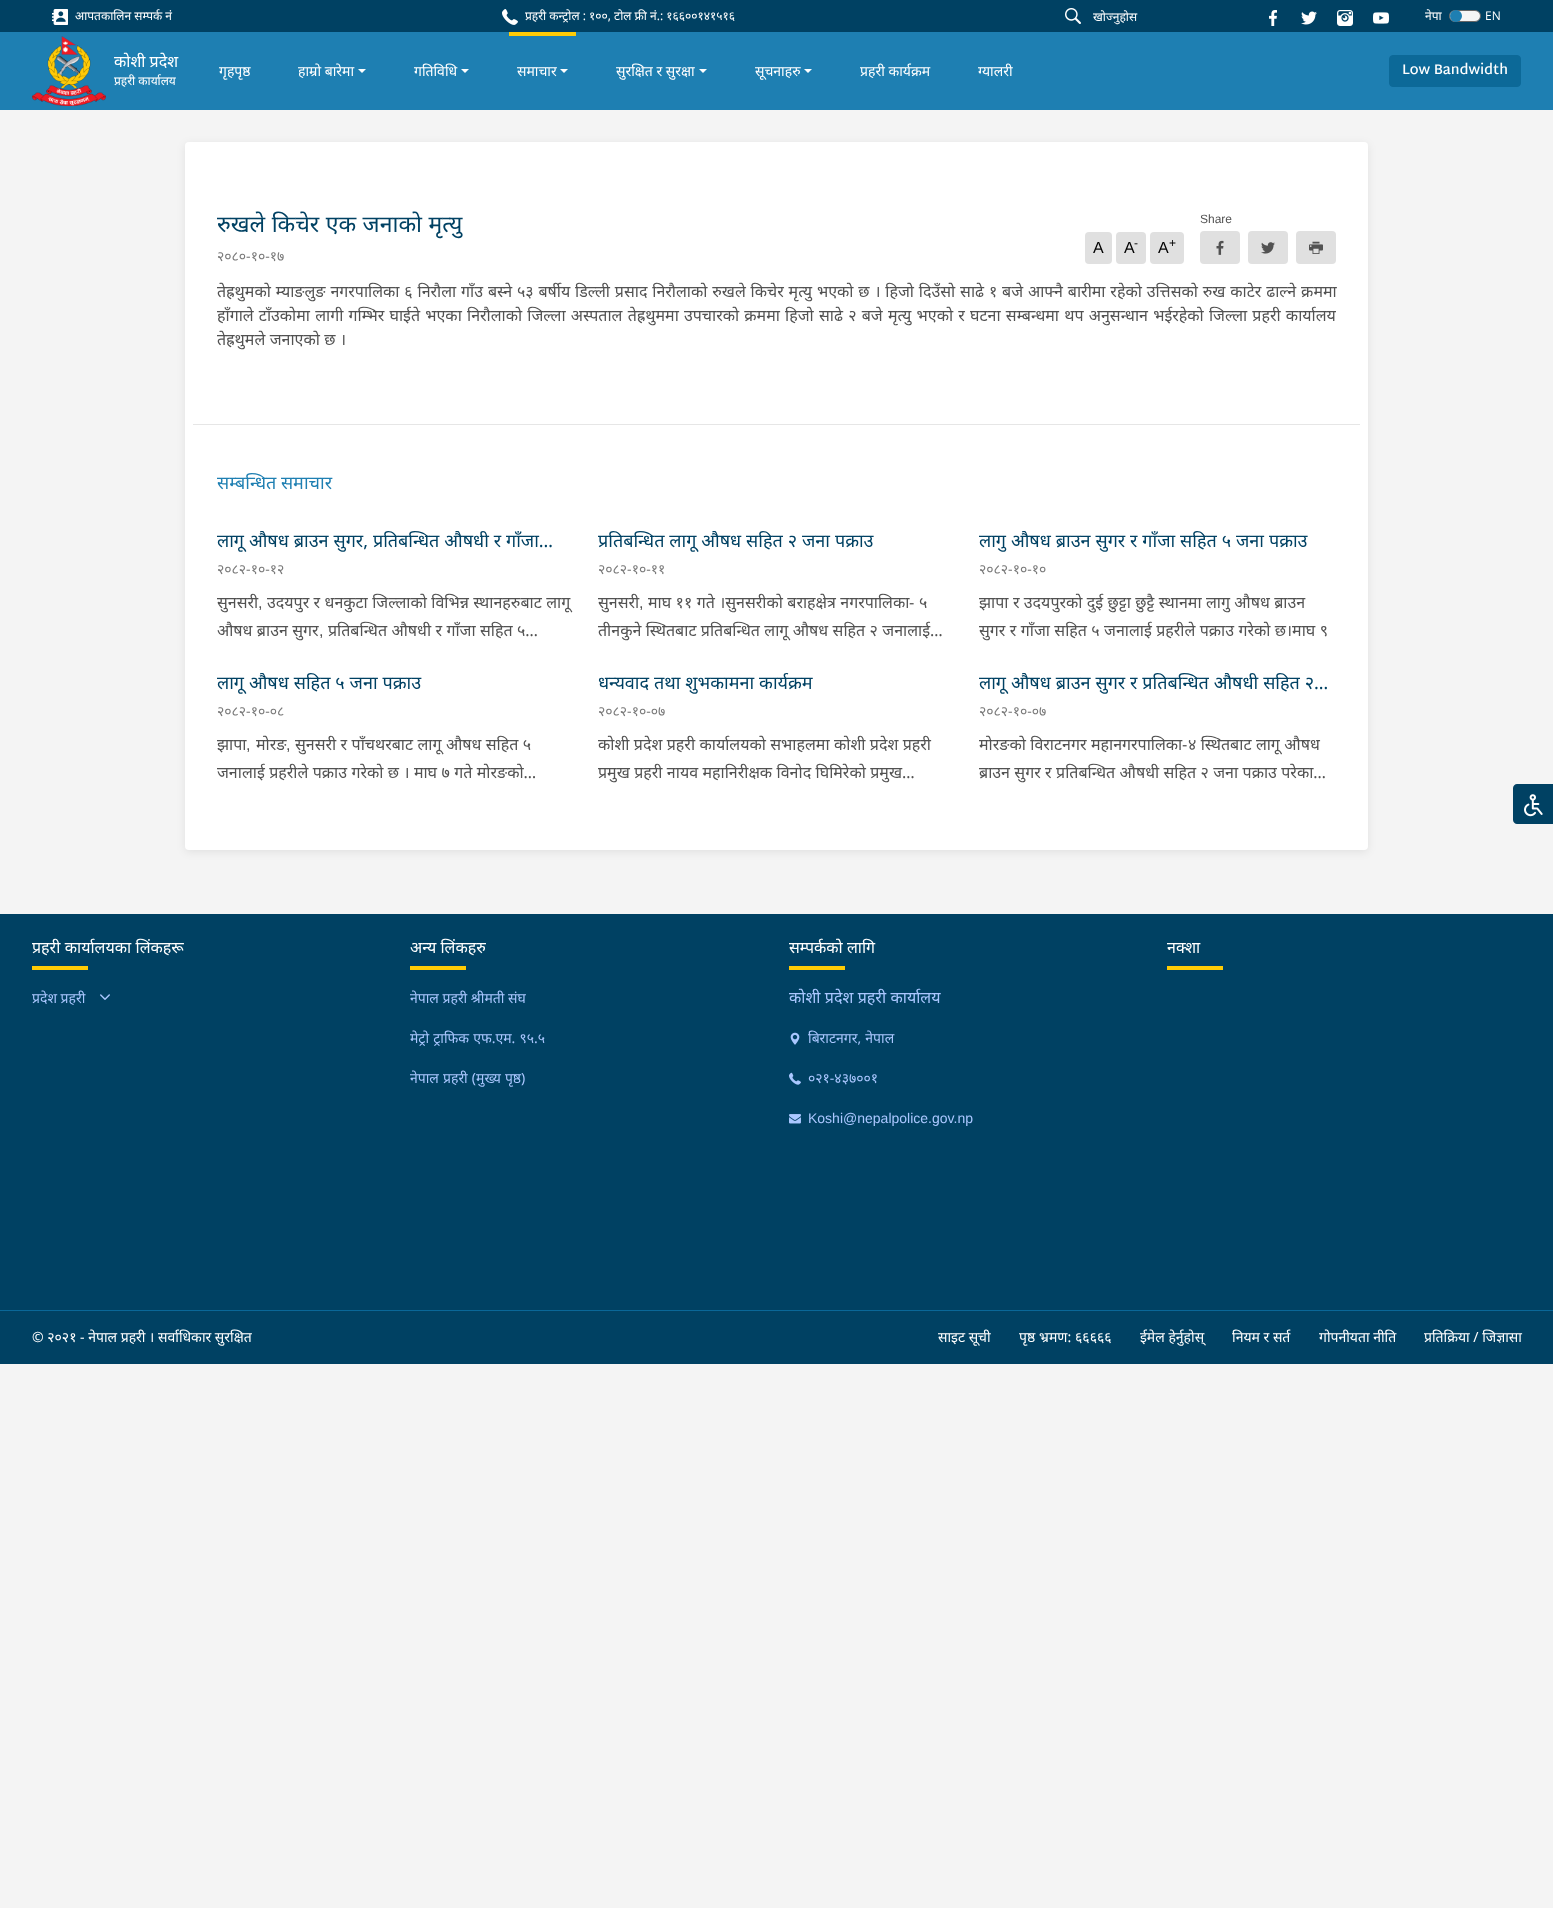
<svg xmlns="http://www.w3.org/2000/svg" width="1553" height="1908">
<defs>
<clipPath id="clip1"><rect x="1093" y="8" width="156" height="17"/></clipPath>
<clipPath id="clip2"><rect x="217" y="589" width="357" height="55"/></clipPath>
<clipPath id="clip3"><rect x="598" y="589" width="357" height="55"/></clipPath>
<clipPath id="clip4"><rect x="979" y="589" width="357" height="55"/></clipPath>
<clipPath id="clip5"><rect x="598" y="731" width="357" height="55"/></clipPath>
<clipPath id="clip6"><rect x="979" y="731" width="357" height="55"/></clipPath>
</defs>
<rect width="100%" height="100%" fill="#f4f4f4"/>
<rect width="1553" height="32" fill="#004163"/>
<image x="52" y="9" width="16" height="16" href="media/1.png"/>
<text x="75" y="20" style="font-family:Noto Sans;font-size:12px;fill:#fff">आपतकालिन सम्पर्क नं</text>
<image x="502" y="9" width="16" height="16" href="media/2.png"/>
<text x="525" y="20" style="font-family:Noto Sans;font-size:12px;fill:#fff">प्रहरी कन्ट्रोल : १००, टोल फ्री नं.: १६६००१४१५१६</text>
<image x="1065" y="8" width="16" height="16" href="media/3.png"/>
<g clip-path="url(#clip1)">
<text x="1093" y="21" style="font-family:Noto Sans;font-size:12px;fill:#fff">खोज्नुहोस</text>
</g>
<image x="1269" y="10" width="8" height="16" href="media/4.png"/>
<image x="1301" y="11" width="16" height="14" href="media/5.png"/>
<image x="1337" y="10" width="16" height="16" href="media/6.png"/>
<image x="1373" y="12" width="16" height="12" href="media/7.png"/>
<text x="1425" y="20" style="font-family:Noto Sans;font-size:12px;fill:#fff">नेपा</text>
<rect x="1449.5" y="10.5" width="31" height="11" rx="5.5" fill="#f5f5f5" stroke="#666"/>
<circle cx="1456" cy="16" r="6" fill="#1e7fb2"/>
<text x="1485" y="20" style="font-family:Open Sans;font-size:12px;fill:#fff">EN</text>
<rect y="32" width="1553" height="78" fill="#1e7fb2"/>
<image x="32" y="36" width="74" height="70" href="media/8.png"/>
<text x="114" y="67" style="font-family:Noto Sans;font-size:16px;fill:#fff">कोशी प्रदेश</text>
<text x="114" y="85" style="font-family:Noto Sans;font-size:12px;fill:#fff">प्रहरी कार्यालय</text>
<text x="219" y="76" style="font-family:Noto Sans;font-size:14px;fill:#fff">गृहपृष्ठ</text>
<text x="298" y="76" style="font-family:Noto Sans;font-size:14px;fill:#fff">हाम्रो बारेमा</text>
<path d="M358 69h8l-4 4z" fill="#fff"/>
<text x="414" y="76" style="font-family:Noto Sans;font-size:14px;fill:#fff">गतिविधि</text>
<path d="M461 69h8l-4 4z" fill="#fff"/>
<rect x="509" y="32" width="67" height="4" fill="#ffcb05"/>
<text x="517" y="76" style="font-family:Noto Sans;font-size:14px;fill:#fff">समाचार</text>
<path d="M560 69h8l-4 4z" fill="#fff"/>
<text x="616" y="76" style="font-family:Noto Sans;font-size:14px;fill:#fff">सुरक्षित र सुरक्षा</text>
<path d="M699 69h8l-4 4z" fill="#fff"/>
<text x="755" y="76" style="font-family:Noto Sans;font-size:14px;fill:#fff">सूचनाहरु</text>
<path d="M804 69h8l-4 4z" fill="#fff"/>
<text x="860" y="76" style="font-family:Noto Sans;font-size:14px;fill:#fff">प्रहरी कार्यक्रम</text>
<text x="978" y="76" style="font-family:Noto Sans;font-size:14px;fill:#fff">ग्यालरी</text>
<rect x="1389.5" y="55.5" width="131" height="31" rx="3.5" fill="#0c6998" stroke="#0c6998"/>
<text x="1402" y="74" style="font-family:Martel Sans;font-size:14px;font-weight:600;fill:#fff">Low Bandwidth</text>
<rect x="185" y="144" width="1183" height="708" rx="4" fill="#00000014" filter="blur(4px)"/>
<rect x="185" y="142" width="1183" height="708" rx="4" fill="#fff"/>
<text x="217" y="232" word-spacing="0.5" style="font-family:Noto Sans;font-size:23px;fill:#004163">रुखले किचेर एक जनाको मृत्यु</text>
<text x="217" y="261" style="font-family:Noto Sans;font-size:14px;fill:#7a7a7a">२०८०-१०-१७</text>
<text x="1200" y="223" style="font-family:Liberation Sans;font-size:12px;fill:#525252">Share</text>
<rect x="1200" y="231" width="40" height="33" rx="4" fill="#e0e0e0"/>
<image x="1216" y="240" width="8" height="15" href="media/9.png"/>
<rect x="1248" y="231" width="40" height="33" rx="4" fill="#e0e0e0"/>
<image x="1261" y="242" width="14" height="12" href="media/10.png"/>
<rect x="1296" y="231" width="40" height="33" rx="4" fill="#e0e0e0"/>
<image x="1309" y="241" width="14" height="13" href="media/11.png"/>
<rect x="1085" y="232" width="27" height="32" rx="4" fill="#e0e0e0"/>
<text x="1093" y="253" style="font-family:Liberation Sans;font-size:16px;fill:#000">A</text>
<rect x="1116" y="232" width="30" height="32" rx="4" fill="#e0e0e0"/>
<text x="1124" y="253" style="font-family:Liberation Sans;font-size:16px;fill:#000">A</text>
<text x="1134" y="247" style="font-family:Liberation Sans;font-size:12px;fill:#000">-</text>
<rect x="1150" y="232" width="34" height="32" rx="4" fill="#e0e0e0"/>
<text x="1158" y="253" style="font-family:Liberation Sans;font-size:16px;fill:#000">A</text>
<text x="1169" y="247" style="font-family:Liberation Sans;font-size:12px;fill:#000">+</text>
<text x="217" y="297" word-spacing="0.7" style="font-family:Noto Sans;font-size:16px;fill:#525252">तेह्रथुमको म्याङलुङ नगरपालिका ६ निरौला गाँउ बस्ने ५३ बर्षीय डिल्ली प्रसाद निरौलाको रुखले किचेर मृत्यु भएको छ । हिजो दिउँसो साढे १ बजे आफ्नै बारीमा रहेको उत्तिसको रुख काटेर ढाल्ने क्रममा</text>
<text x="217" y="321" word-spacing="1.05" style="font-family:Noto Sans;font-size:16px;fill:#525252">हाँगाले टाँउकोमा लागी गम्भिर घाईते भएका निरौलाको जिल्ला अस्पताल तेह्रथुममा उपचारको क्रममा हिजो साढे २ बजे मृत्यु भएको र घटना सम्बन्धमा थप अनुसन्धान भईरहेको जिल्ला प्रहरी कार्यालय</text>
<text x="217" y="345" word-spacing="0.25" style="font-family:Noto Sans;font-size:16px;fill:#525252">तेह्रथुमले जनाएको छ ।</text>
<rect x="193" y="424" width="1167" height="1" fill="#e6e6e6"/>
<text x="217" y="489" style="font-family:Noto Sans;font-size:18px;fill:#1e7fb2">सम्बन्धित समाचार</text>
<text x="217" y="547" word-spacing="0.25" style="font-family:Noto Sans;font-size:18px;fill:#004163">लागू औषध ब्राउन सुगर, प्रतिबन्धित औषधी र गाँजा…</text>
<text x="217" y="574" style="font-family:Noto Sans;font-size:14px;fill:#7a7a7a">२०८२-१०-१२</text>
<g clip-path="url(#clip2)">
<text x="217" y="608" style="font-family:Noto Sans;font-size:16px;fill:#525252">सुनसरी</text>
</g>
<text x="258" y="608" style="font-family:Liberation Sans;font-size:16px;fill:#525252">,</text>
<text x="267" y="608" word-spacing="0.25" style="font-family:Noto Sans;font-size:16px;fill:#525252">उदयपुर र धनकुटा जिल्लाको विभिन्न स्थानहरुबाट लागू</text>
<text x="217" y="636" word-spacing="0.25" style="font-family:Noto Sans;font-size:16px;fill:#525252">औषध ब्राउन सुगर</text>
<text x="319" y="636" style="font-family:Liberation Sans;font-size:16px;fill:#525252">,</text>
<text x="328" y="636" word-spacing="0.25" style="font-family:Noto Sans;font-size:16px;fill:#525252">प्रतिबन्धित औषधी र गाँजा सहित ५…</text>
<text x="598" y="547" word-spacing="0.25" style="font-family:Noto Sans;font-size:18px;fill:#004163">प्रतिबन्धित लागू औषध सहित २ जना पक्राउ</text>
<text x="598" y="574" style="font-family:Noto Sans;font-size:14px;fill:#7a7a7a">२०८२-१०-११</text>
<g clip-path="url(#clip3)">
<text x="598" y="608" style="font-family:Noto Sans;font-size:16px;fill:#525252">सुनसरी</text>
</g>
<text x="648" y="608" word-spacing="0.25" style="font-family:Noto Sans;font-size:16px;fill:#525252">माघ ११ गते ।सुनसरीको बराहक्षेत्र नगरपालिका</text>
<text x="909" y="608" style="font-family:Liberation Sans;font-size:16px;fill:#525252">-</text>
<text x="919" y="608" style="font-family:Noto Sans;font-size:16px;fill:#525252">५</text>
<text x="639" y="608" style="font-family:Liberation Sans;font-size:16px;fill:#525252">,</text>
<g clip-path="url(#clip3)">
<text x="598" y="636" word-spacing="0.25" style="font-family:Noto Sans;font-size:16px;fill:#525252">तीनकुने स्थितबाट प्रतिबन्धित लागू औषध सहित २ जनालाई…</text>
</g>
<text x="979" y="547" word-spacing="0.25" style="font-family:Noto Sans;font-size:18px;fill:#004163">लागु औषध ब्राउन सुगर र गाँजा सहित ५ जना पक्राउ</text>
<text x="979" y="574" style="font-family:Noto Sans;font-size:14px;fill:#7a7a7a">२०८२-१०-१०</text>
<text x="979" y="608" word-spacing="0.25" style="font-family:Noto Sans;font-size:16px;fill:#525252">झापा र उदयपुरको दुई छुट्टा छुट्टै स्थानमा लागु औषध ब्राउन</text>
<g clip-path="url(#clip4)">
<text x="979" y="636" word-spacing="0.25" style="font-family:Noto Sans;font-size:16px;fill:#525252">सुगर र गाँजा सहित ५ जनालाई प्रहरीले पक्राउ गरेको छ।माघ ९</text>
</g>
<text x="217" y="689" word-spacing="0.25" style="font-family:Noto Sans;font-size:18px;fill:#004163">लागू औषध सहित ५ जना पक्राउ</text>
<text x="217" y="716" style="font-family:Noto Sans;font-size:14px;fill:#7a7a7a">२०८२-१०-०८</text>
<text x="217" y="750" style="font-family:Noto Sans;font-size:16px;fill:#525252">झापा</text>
<text x="246" y="750" style="font-family:Liberation Sans;font-size:16px;fill:#525252">,</text>
<text x="256" y="750" style="font-family:Noto Sans;font-size:16px;fill:#525252">मोरङ</text>
<text x="286" y="750" style="font-family:Liberation Sans;font-size:16px;fill:#525252">,</text>
<text x="295" y="750" word-spacing="0.25" style="font-family:Noto Sans;font-size:16px;fill:#525252">सुनसरी र पाँचथरबाट लागू औषध सहित ५</text>
<text x="217" y="778" word-spacing="0.25" style="font-family:Noto Sans;font-size:16px;fill:#525252">जनालाई प्रहरीले पक्राउ गरेको छ । माघ ७ गते मोरङको…</text>
<text x="598" y="689" word-spacing="0.25" style="font-family:Noto Sans;font-size:18px;fill:#004163">धन्यवाद तथा शुभकामना कार्यक्रम</text>
<text x="598" y="716" style="font-family:Noto Sans;font-size:14px;fill:#7a7a7a">२०८२-१०-०७</text>
<g clip-path="url(#clip5)">
<text x="598" y="750" word-spacing="0.25" style="font-family:Noto Sans;font-size:16px;fill:#525252">कोशी प्रदेश प्रहरी कार्यालयको सभाहलमा कोशी प्रदेश प्रहरी</text>
</g>
<text x="598" y="778" word-spacing="0.25" style="font-family:Noto Sans;font-size:16px;fill:#525252">प्रमुख प्रहरी नायव महानिरीक्षक विनोद घिमिरेको प्रमुख…</text>
<text x="979" y="689" word-spacing="0.25" style="font-family:Noto Sans;font-size:18px;fill:#004163">लागू औषध ब्राउन सुगर र प्रतिबन्धित औषधी सहित २…</text>
<text x="979" y="716" style="font-family:Noto Sans;font-size:14px;fill:#7a7a7a">२०८२-१०-०७</text>
<g clip-path="url(#clip6)">
<text x="979" y="750" word-spacing="0.25" style="font-family:Noto Sans;font-size:16px;fill:#525252">मोरङको विराटनगर महानगरपालिका</text>
</g>
<text x="1182" y="750" style="font-family:Liberation Sans;font-size:16px;fill:#525252">-</text>
<text x="1188" y="750" word-spacing="0.25" style="font-family:Noto Sans;font-size:16px;fill:#525252">४ स्थितबाट लागू औषध</text>
<text x="979" y="778" word-spacing="0.25" style="font-family:Noto Sans;font-size:16px;fill:#525252">ब्राउन सुगर र प्रतिबन्धित औषधी सहित २ जना पक्राउ परेका…</text>
<path d="M1517 784h36v40h-36c-2 0-4-2-4-4v-32c0-2 2-4 4-4z" fill="#004163"/>
<image x="1524" y="794" width="19" height="23" href="media/12.png"/>
<rect y="914" width="1553" height="450" fill="#004163"/>
<text x="32" y="953" word-spacing="0.25" style="font-family:Noto Sans;font-size:16px;fill:#fff">प्रहरी कार्यालयका लिंकहरू</text>
<rect x="32" y="966" width="56" height="4" fill="#ffcb05"/>
<text x="32" y="1003" style="font-family:Noto Sans;font-size:14px;fill:#aac7ff">प्रदेश प्रहरी</text>
<image x="100" y="994" width="10" height="6" href="media/13.png"/>
<text x="410" y="953" style="font-family:Noto Sans;font-size:16px;fill:#fff">अन्य लिंकहरु</text>
<rect x="410" y="966" width="56" height="4" fill="#ffcb05"/>
<text x="410" y="1003" style="font-family:Noto Sans;font-size:14px;fill:#aac7ff">नेपाल प्रहरी श्रीमती संघ</text>
<text x="410" y="1043" word-spacing="0.5" style="font-family:Noto Sans;font-size:14px;fill:#aac7ff">मेट्रो ट्राफिक एफ.एम. ९५.५</text>
<text x="410" y="1083" word-spacing="0.5" style="font-family:Noto Sans;font-size:14px;fill:#aac7ff">नेपाल प्रहरी (मुख्य पृष्ठ)</text>
<text x="789" y="953" style="font-family:Noto Sans;font-size:16px;fill:#fff">सम्पर्कको लागि</text>
<rect x="789" y="966" width="56" height="4" fill="#ffcb05"/>
<text x="789" y="1003" word-spacing="0.25" style="font-family:Noto Sans;font-size:16px;fill:#aac7ff">कोशी प्रदेश प्रहरी कार्यालय</text>
<image x="790" y="1032" width="10" height="13" href="media/14.png"/>
<text x="808" y="1043" word-spacing="0.5" style="font-family:Noto Sans;font-size:14px;fill:#aac7ff">बिराटनगर, नेपाल</text>
<image x="789" y="1072" width="12" height="13" href="media/15.png"/>
<text x="808" y="1083" style="font-family:Noto Sans;font-size:14px;fill:#aac7ff">०२१-४३७००१</text>
<image x="789" y="1114" width="12" height="10" href="media/16.png"/>
<text x="808" y="1123" style="font-family:Liberation Sans;font-size:14px;fill:#aac7ff">Koshi@nepalpolice.gov.np</text>
<text x="1167" y="953" style="font-family:Noto Sans;font-size:16px;fill:#fff">नक्शा</text>
<rect x="1167" y="966" width="56" height="4" fill="#ffcb05"/>
<rect y="1310" width="1553" height="1" fill="#0a6798"/>
<text x="32" y="1342" style="font-family:Noto Sans;font-size:14px;fill:#fff">© २०२१ - नेपाल प्रहरी । सर्वाधिकार सुरक्षित</text>
<text x="938" y="1342" style="font-family:Noto Sans;font-size:14px;fill:#fff">साइट सूची</text>
<text x="1019" y="1342" word-spacing="0.25" style="font-family:Noto Sans;font-size:14px;fill:#fff">पृष्ठ भ्रमण: ६६६६६</text>
<text x="1140" y="1342" style="font-family:Noto Sans;font-size:14px;fill:#fff">ईमेल हेर्नुहोस्</text>
<text x="1232" y="1342" style="font-family:Noto Sans;font-size:14px;fill:#fff">नियम र सर्त</text>
<text x="1319" y="1342" style="font-family:Noto Sans;font-size:14px;fill:#fff">गोपनीयता नीति</text>
<text x="1424" y="1342" style="font-family:Noto Sans;font-size:14px;fill:#fff">प्रतिक्रिया / जिज्ञासा</text>
</svg>
